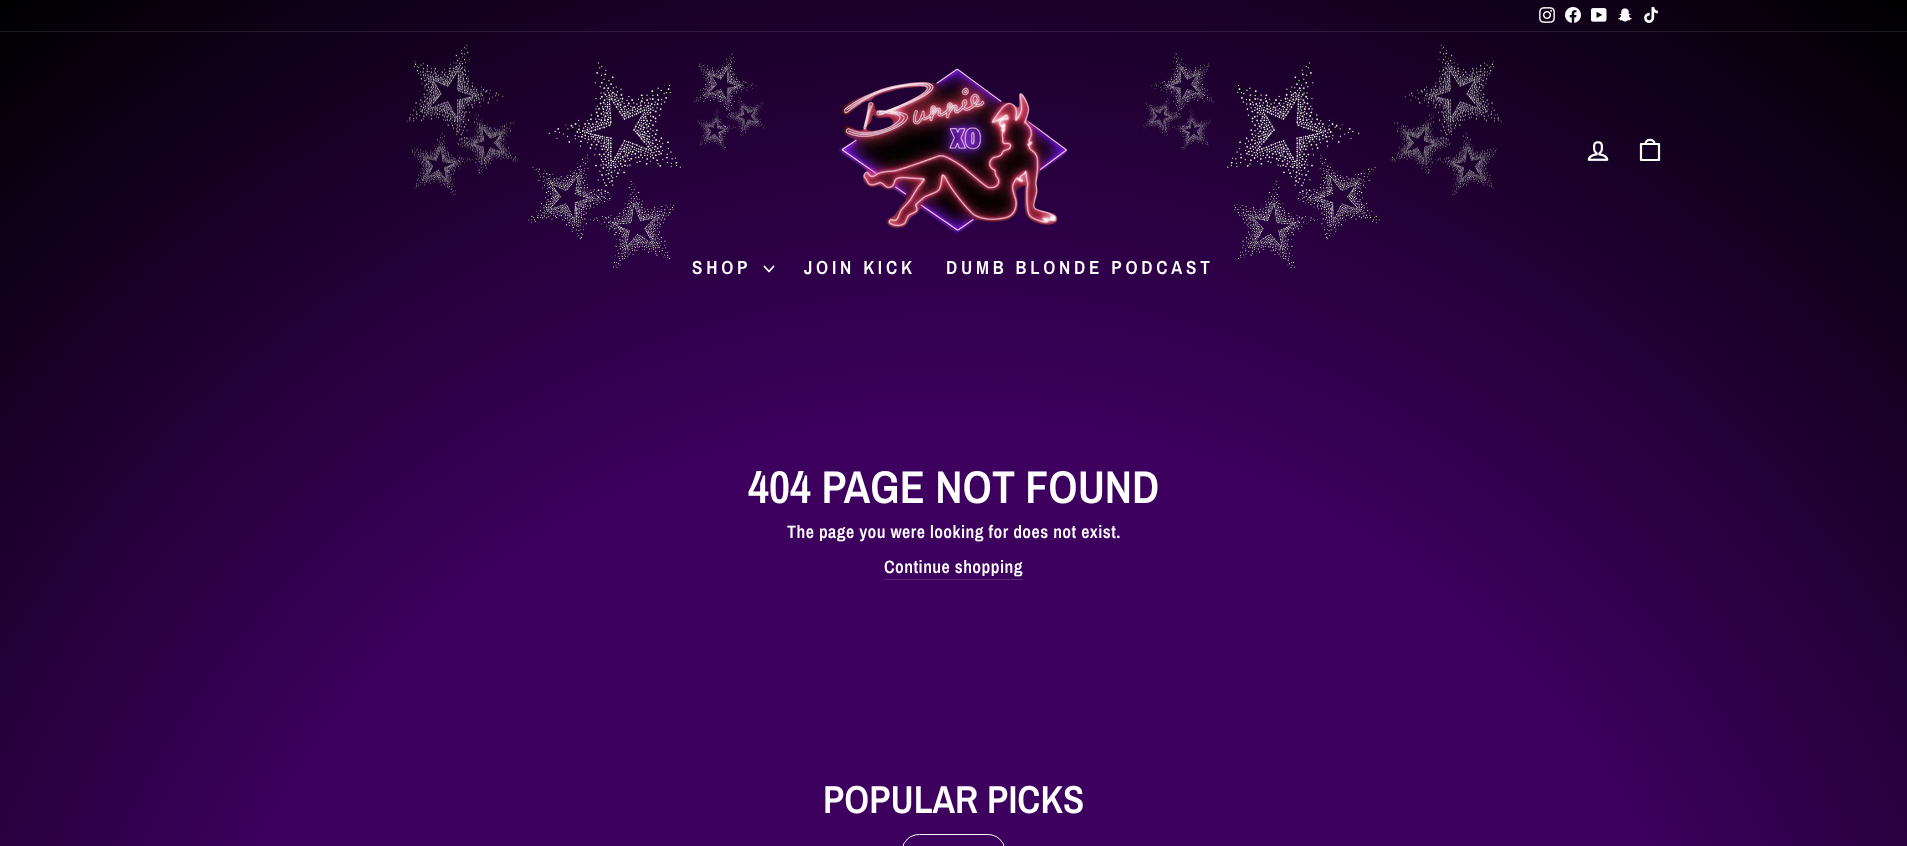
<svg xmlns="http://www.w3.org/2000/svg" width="1907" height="846">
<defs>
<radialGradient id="g1" gradientUnits="userSpaceOnUse" cx="954" cy="1200" r="1532"><stop offset="0.5" stop-color="#3d005f"/><stop offset="1" stop-color="#000"/></radialGradient>
<radialGradient id="g2" gradientUnits="userSpaceOnUse" cx="954" cy="1200" r="1532"><stop offset="0.5" stop-color="#501a6f"/><stop offset="1" stop-color="#1a1a1a"/></radialGradient>
</defs>
<rect width="100%" height="100%" fill="#fff"/>
<rect width="1907" height="846" fill="url(#g1)"/>
<rect y="31" width="1907" height="1" fill="url(#g2)"/>
<image x="1539" y="7" width="16" height="16" href="media/1.png"/>
<image x="1565" y="7" width="16" height="16" href="media/2.png"/>
<image x="1591" y="8" width="16" height="14" href="media/3.png"/>
<image x="1618" y="8" width="14" height="14" href="media/4.png"/>
<image x="1644" y="7" width="14" height="16" href="media/5.png"/>
<image x="406" y="44" width="1096" height="225" href="media/6.png"/>
<image x="838" y="68" width="230" height="166" href="media/7.png"/>
<image x="1587" y="141" width="22" height="20" href="media/8.png"/>
<path d="M1641 144h18v16h-18zm4.5 0c0-5.5 9-5.5 9 0" fill="none" stroke="#fff" stroke-width="2.2" stroke-linecap="round" stroke-linejoin="round"/>
<text x="692" y="274" style="font-family:Archivo Narrow;font-size:19px;font-weight:600;letter-spacing:3.75px;fill:#fff">SHOP</text>
<path d="M764.5 266.5l4.5 5l4.5-5" fill="none" stroke="#fff" stroke-width="1.8" stroke-linecap="round" stroke-linejoin="round"/>
<text x="804" y="274" style="font-family:Archivo Narrow;font-size:19px;font-weight:600;letter-spacing:3.75px;fill:#fff">JOIN KICK</text>
<text x="946" y="274" style="font-family:Archivo Narrow;font-size:19px;font-weight:600;letter-spacing:3.75px;fill:#fff">DUMB BLONDE PODCAST</text>
<text x="748" y="503" style="font-family:Archivo Narrow;font-size:46px;font-weight:600;fill:#fff">404 PAGE NOT FOUND</text>
<text x="787" y="538" style="font-family:Archivo Narrow;font-size:18px;font-weight:600;letter-spacing:0.45px;fill:#fff">The page you were looking for does not exist.</text>
<rect x="884" y="579" width="139" height="1" fill="#5a2677"/>
<text x="884" y="573" style="font-family:Archivo Narrow;font-size:18px;font-weight:600;letter-spacing:0.45px;fill:#fff">Continue shopping</text>
<text x="823" y="813" style="font-family:Archivo Narrow;font-size:39px;font-weight:600;fill:#fff">POPULAR PICKS</text>
<rect x="902.5" y="834.5" width="102" height="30" rx="17" fill="none" stroke="#f9f9f9"/>
</svg>
